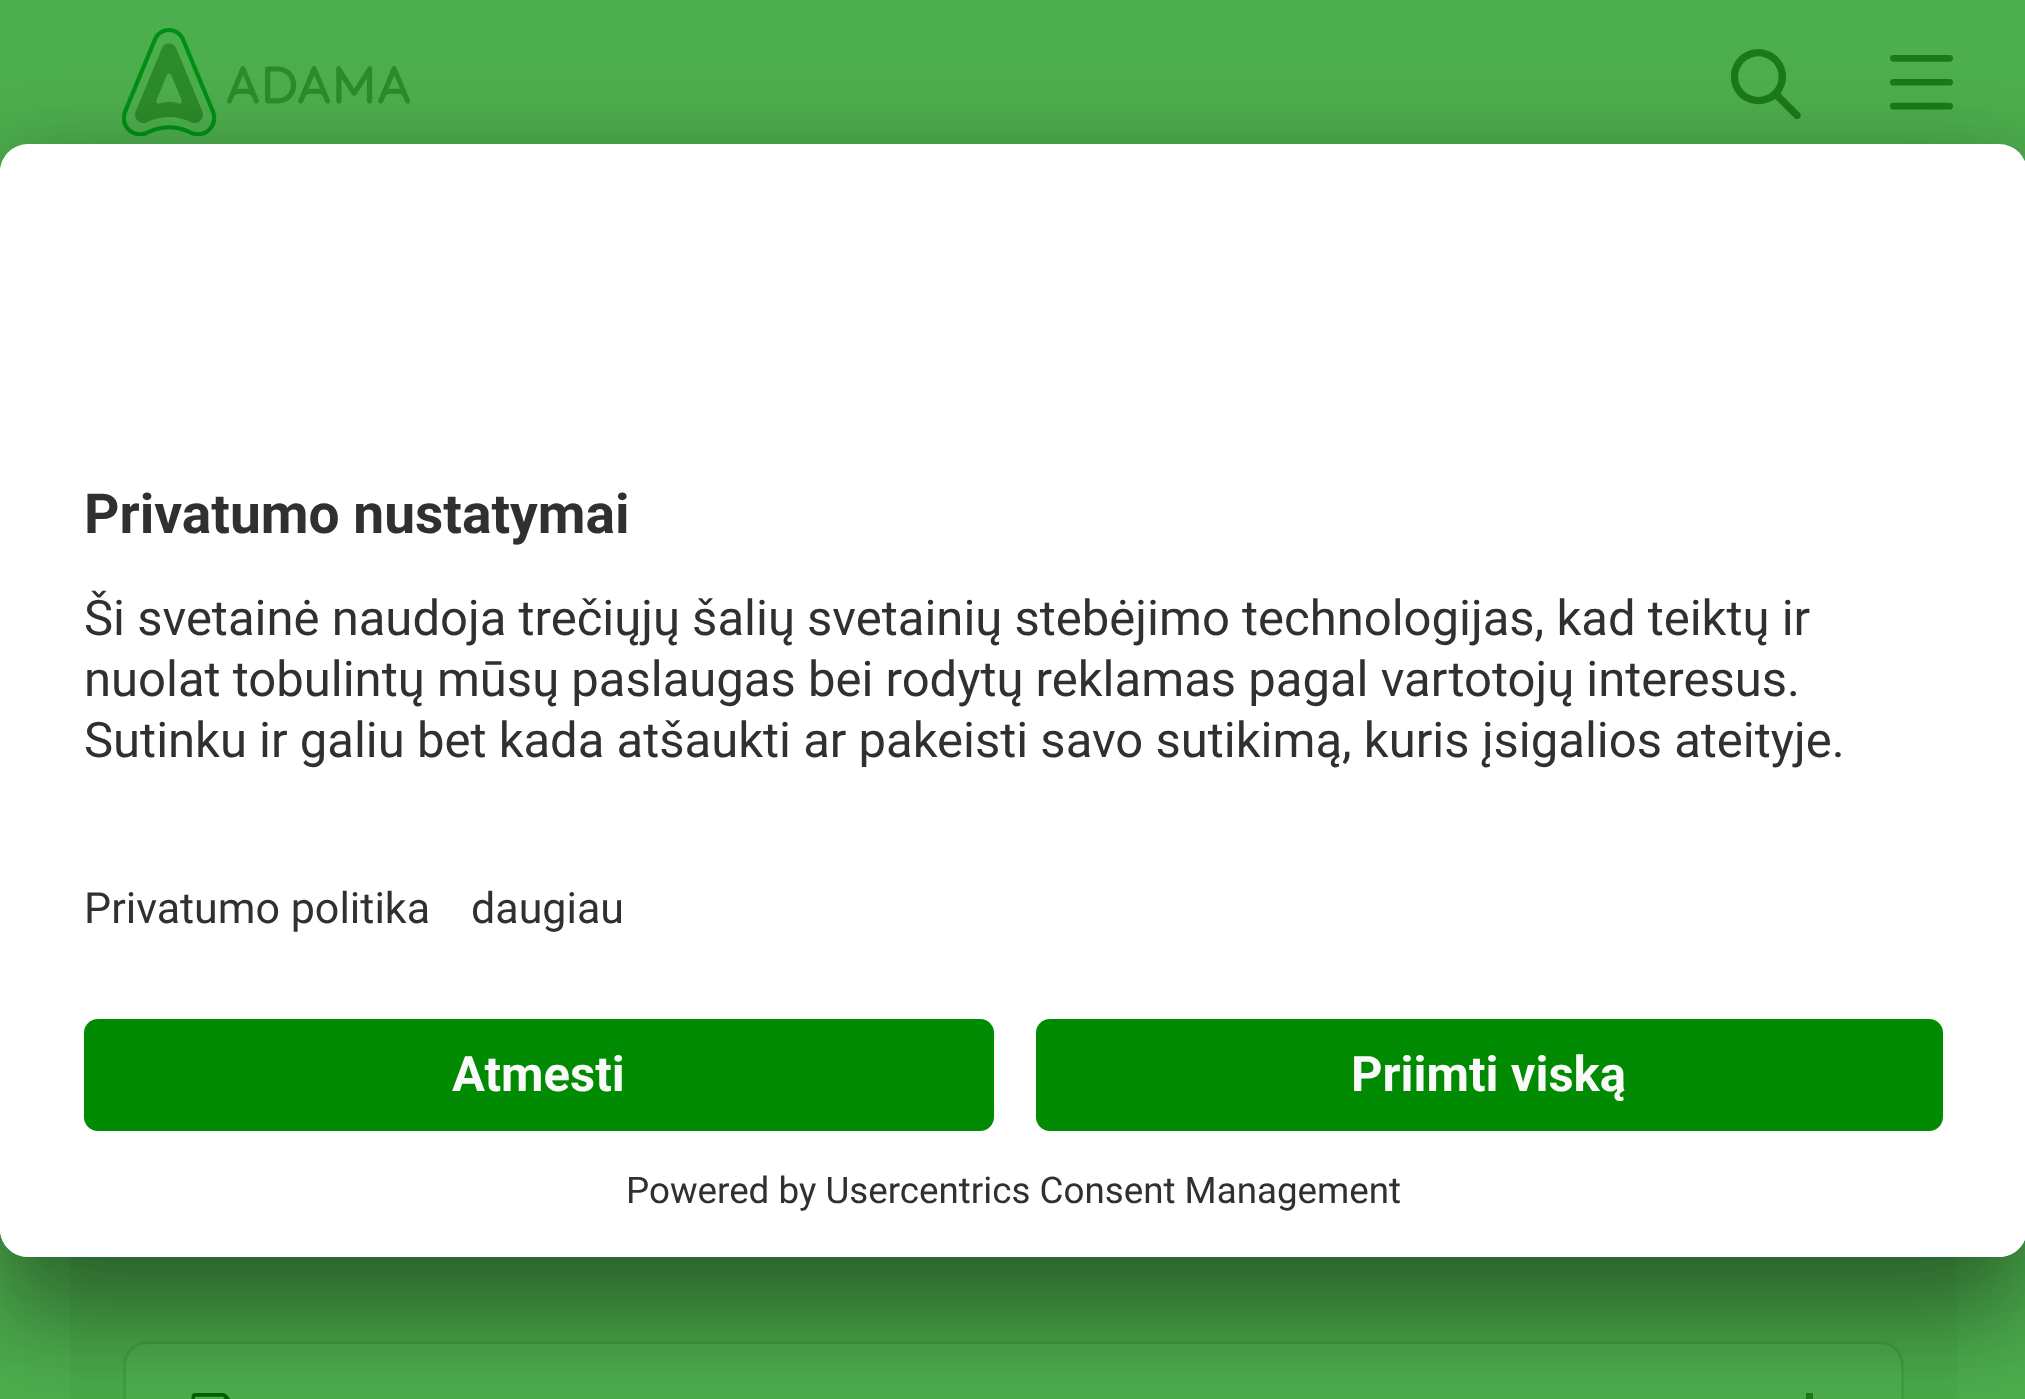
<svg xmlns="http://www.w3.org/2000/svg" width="2025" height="1399">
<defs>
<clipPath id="clip1"><rect y="144" width="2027" height="1113" rx="28"/></clipPath>
<clipPath id="clip2"><path d="M28 144h1971c15.5 0 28 12.5 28 28v819h-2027v-819c0-15.5 12.5-28 28-28z"/></clipPath>
</defs>
<rect width="100%" height="100%" fill="#4dae4e"/>
<image x="122" y="28" width="288" height="108" href="media/1.png"/>
<image x="1730" y="49" width="71" height="70" href="media/2.png"/>
<image x="1890" y="55" width="63" height="56" href="media/3.png"/>
<rect x="70" y="1257" width="1887" height="142" fill="#4aaa4a"/>
<rect x="125" y="1343" width="1777" height="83" rx="23" fill="none" stroke="#41a141" stroke-width="4"/>
<rect x="126" y="1344" width="1775" height="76" rx="21" fill="#4dae4e"/>
<image x="191" y="1393" width="40" height="6" href="media/4.png"/>
<rect x="1806" y="1393" width="7" height="6" fill="#1d7919"/>
<rect y="214" width="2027" height="1113" rx="28" fill="#0000004d" filter="blur(49px)"/>
<rect y="161" width="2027" height="1113" rx="28" fill="#00000038" filter="blur(45.5px)"/>
<rect y="144" width="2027" height="1113" rx="28" fill="#fff"/>
<g clip-path="url(#clip1)">
<g clip-path="url(#clip2)">
<rect y="147" width="2025" height="844" fill="#fff"/>
</g>
</g>
<text x="84" y="533" style="font-family:Roboto;font-size:55.1px;font-weight:bold;fill:#303030">Privatumo nustatymai</text>
<text x="84" y="635" style="font-family:Roboto;font-size:49px;fill:#303030">Ši svetainė naudoja trečiųjų šalių svetainių stebėjimo technologijas, kad teiktų ir</text>
<text x="84" y="696" style="font-family:Roboto;font-size:49px;fill:#303030">nuolat tobulintų mūsų paslaugas bei rodytų reklamas pagal vartotojų interesus.</text>
<text x="84" y="757" style="font-family:Roboto;font-size:49px;fill:#303030">Sutinku ir galiu bet kada atšaukti ar pakeisti savo sutikimą, kuris įsigalios ateityje.</text>
<text x="84" y="923" style="font-family:Roboto;font-size:43px;fill:#303030">Privatumo politika</text>
<text x="471" y="923" style="font-family:Roboto;font-size:43px;fill:#303030">daugiau</text>
<path d="M0 991h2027v238c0 15.5-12.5 28-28 28h-1971c-15.5 0-28-12.5-28-28z" fill="#fff"/>
<rect x="84" y="1019" width="910" height="112" rx="14" fill="#008b02"/>
<text x="452" y="1091" style="font-family:Roboto;font-size:49px;font-weight:bold;fill:#fafafa">Atmesti</text>
<rect x="1036" y="1019" width="907" height="112" rx="14" fill="#008b02"/>
<text x="1351" y="1091" style="font-family:Roboto;font-size:49px;font-weight:bold;fill:#fafafa">Priimti viską</text>
<text x="626" y="1203" style="font-family:Roboto;font-size:36.75px;fill:#303030">Powered by Usercentrics Consent Management</text>
</svg>
